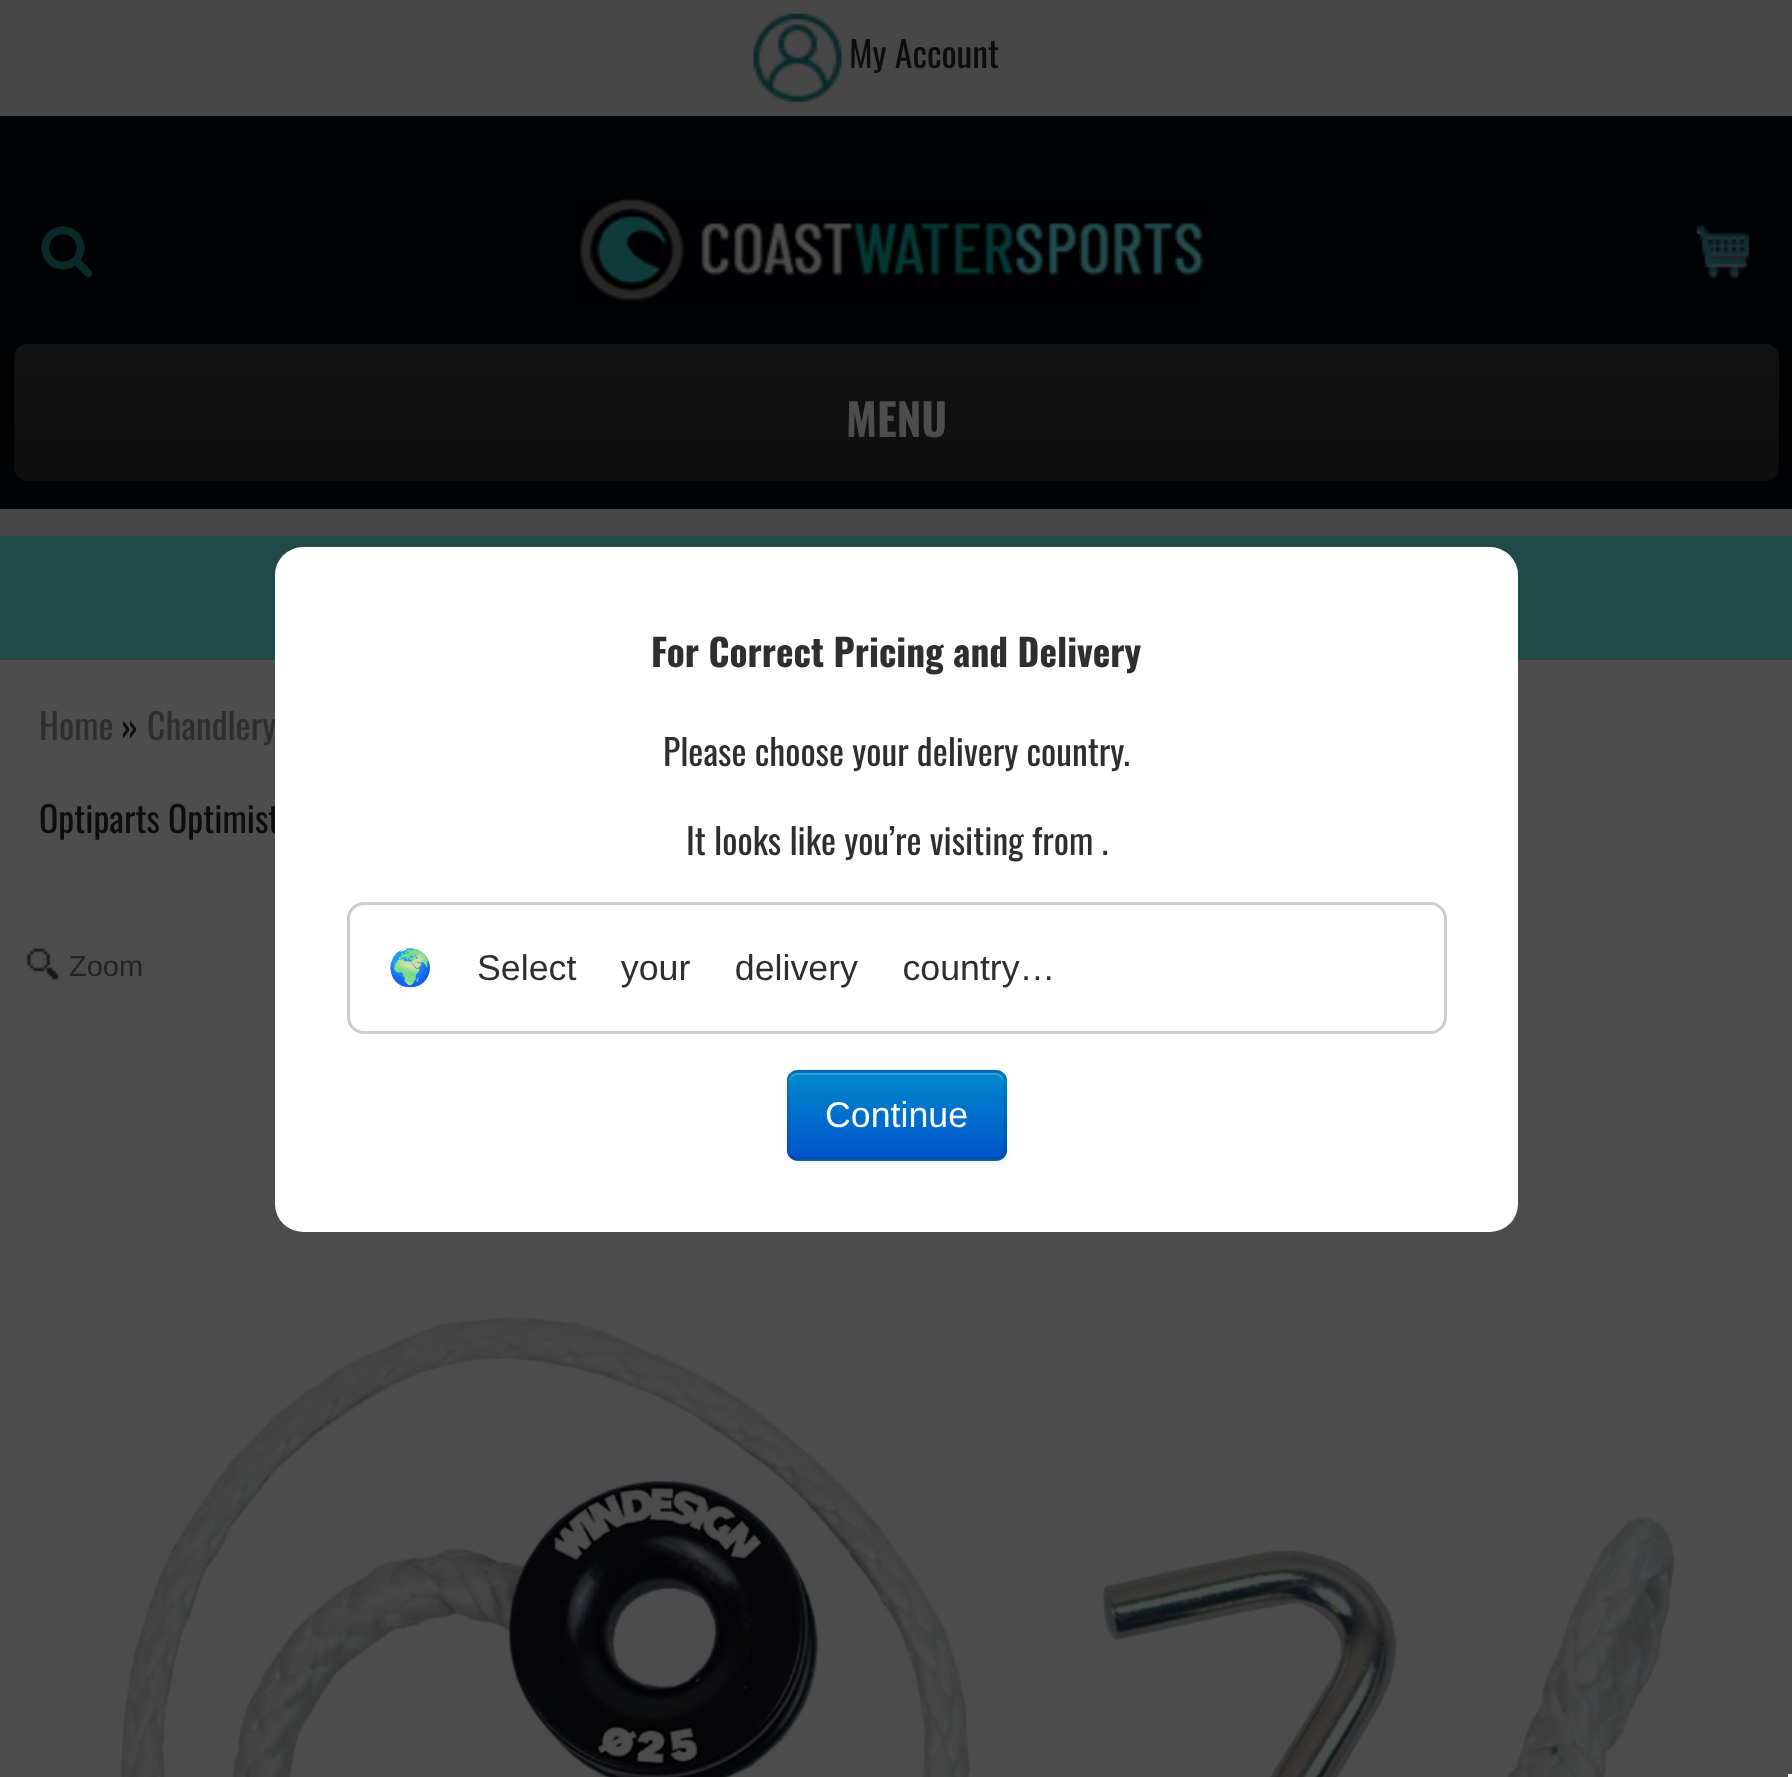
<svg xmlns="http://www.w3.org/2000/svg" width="1792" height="1777">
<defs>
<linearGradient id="g1" gradientUnits="userSpaceOnUse" x1="897" y1="344" x2="897" y2="481"><stop offset="0" stop-color="#121212"/><stop offset="1" stop-color="#0e0e0e"/></linearGradient>
<clipPath id="clip1"><rect x="787" y="1070" width="220" height="91" rx="11"/></clipPath>
<linearGradient id="g2" gradientUnits="userSpaceOnUse" x1="897" y1="1073" x2="897" y2="1158"><stop offset="0" stop-color="#08c"/><stop offset="1" stop-color="#05c"/></linearGradient>
</defs>
<rect width="100%" height="100%" fill="#4d4d4d"/>
<rect width="1792" height="116" fill="#474747"/>
<image x="753" y="13" width="89" height="89" href="media/1.png"/>
<text x="849" y="68" style="font-family:Oswald;font-size:35.75px;fill:#0d0d0d">My Account</text>
<rect y="116" width="1792" height="393" fill="#000204"/>
<image x="41" y="226" width="52" height="52" href="media/2.png"/>
<image x="572" y="198" width="634" height="105" href="media/3.png"/>
<image x="1696" y="225" width="53" height="53" href="media/4.png"/>
<rect x="14" y="344" width="1765" height="137" rx="14" fill="url(#g1)"/>
<text x="846" y="437" style="font-family:Oswald;font-size:44px;font-weight:bold;fill:#4d4d4d">MENU</text>
<rect y="509" width="1792" height="27" fill="#474747"/>
<rect y="536" width="1792" height="124" fill="#204948"/>
<text x="39" y="740" style="font-family:Oswald;font-size:35.75px;fill:#2e2e2e">Home</text>
<text x="121" y="740" style="font-family:Oswald;font-size:35.75px;fill:#0d0d0d">»</text>
<text x="147" y="740" style="font-family:Oswald;font-size:35.75px;fill:#2e2e2e">Chandlery</text>
<text x="39" y="833" style="font-family:Oswald;font-size:35.75px;fill:#0d0d0d">Optiparts Optimist</text>
<rect x="8" y="921" width="1784" height="856" fill="#474747"/>
<image x="8" y="921" width="1784" height="856" href="media/5.png"/>
<image x="26" y="948" width="33" height="32" href="media/6.png"/>
<text x="69" y="976" style="font-family:Liberation Sans;font-size:29px;fill:#232323">Zoom</text>
<rect x="275" y="547" width="1243" height="685" rx="28" fill="#fff"/>
<text x="651" y="667" style="font-family:Oswald;font-size:37.25px;font-weight:bold;fill:#2e2e2e">For Correct Pricing and Delivery</text>
<text x="663" y="766" style="font-family:Oswald;font-size:35.75px;fill:#2e2e2e">Please choose your delivery country.</text>
<text x="686" y="855" style="font-family:Oswald;font-size:35.75px;fill:#2e2e2e">It looks like you’re visiting from .</text>
<rect x="348.5" y="903.5" width="1097" height="129" rx="15.5" fill="none" stroke="#ccc" stroke-width="3"/>
<text x="388" y="980" style="font-family:Noto Color Emoji;font-size:35.75px;fill:#2e2e2e">🌍</text>
<text x="477" y="980" word-spacing="34.5" style="font-family:Liberation Sans;font-size:35.75px;fill:#2e2e2e">Select your delivery country…</text>
<rect x="787" y="1073" width="220" height="90" rx="11" fill="#0000000d" filter="blur(3px)"/>
<rect x="787" y="1070" width="220" height="91" rx="11" fill="#0074cc"/>
<g clip-path="url(#clip1)">
<rect x="787" y="1073" width="220" height="85" fill="url(#g2)"/>
</g>
<path d="M798 1075h198c4 0 8 4 8 9v-3c0-4-4-8-8-8h-199c-4 0-8 4-8 8v3c0-5 4-9 9-9z" fill="#ffffff33"/>
<path d="M1002.5 1156.5c-2 1.5-4.5 2.5-7 2.5h-198c-2.5 0-5-1-7-2.5" fill="none" stroke="#00000040" stroke-width="2.8"/>
<path d="M790.5 1156.5c-1.5-2-2.5-4.5-2.5-7v-68.5c0-3 1-5.5 2.5-7c2-2 4.5-3 7-3h198c2.5 0 5 1 7 3c1.5 1.5 2.5 4 2.5 7v68.5c0 2.5-1 5-2.5 7" fill="none" stroke="#0000001a" stroke-width="2.8"/>
<text x="825" y="1127" style="font-family:Liberation Sans;font-size:35.75px;fill:#fff">Continue</text>
<rect x="1788" y="1774" width="4" height="3" fill="#f5f5f5"/>
</svg>
